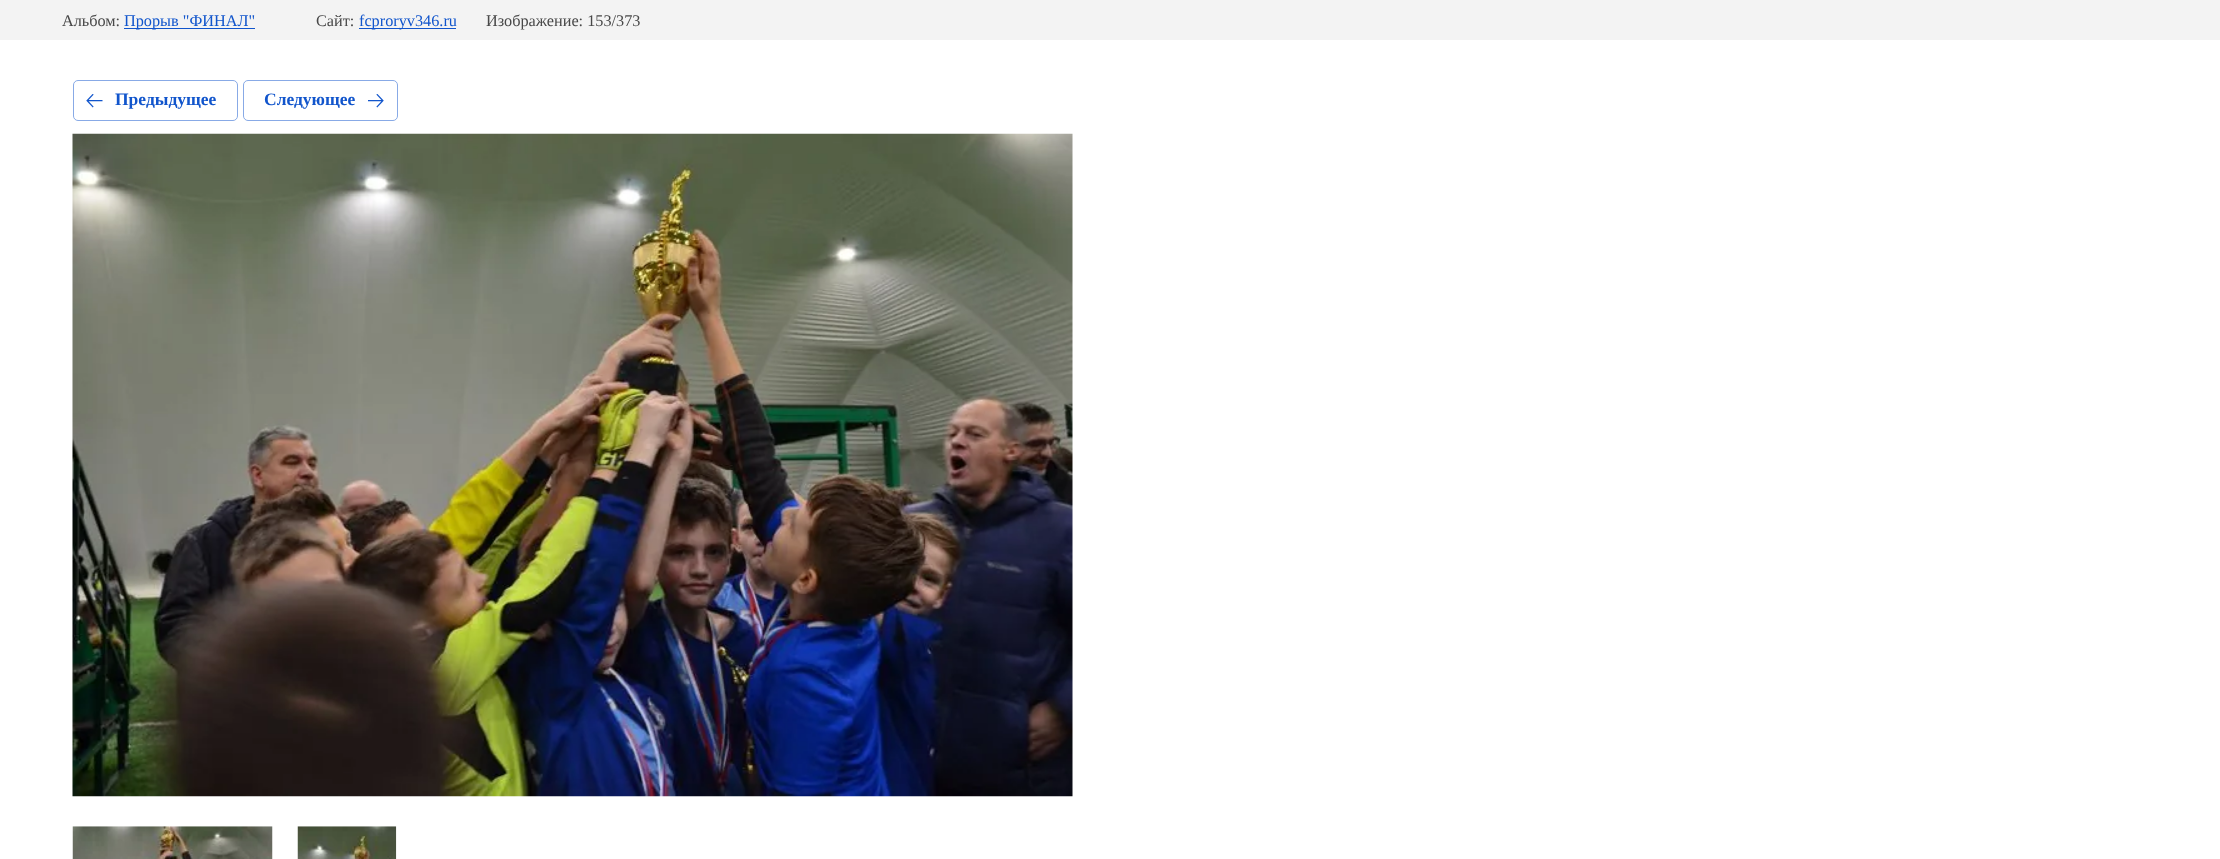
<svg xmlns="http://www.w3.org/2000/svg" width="2220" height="859">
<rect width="100%" height="100%" fill="#fff"/>
<rect width="2220" height="40" fill="#f3f3f3"/>
<text x="62" y="26" style="font-family:Liberation Serif;font-size:16.25px;fill:#484848">Альбом:</text>
<rect x="124" y="28" width="131" height="1" fill="#15c"/>
<text x="124" y="26" style="font-family:Liberation Serif;font-size:16.25px;fill:#15c">Прорыв "ФИНАЛ"</text>
<text x="316" y="26" style="font-family:Liberation Serif;font-size:16.25px;fill:#484848">Сайт:</text>
<rect x="359" y="28" width="97" height="1" fill="#15c"/>
<text x="359" y="26" style="font-family:Liberation Serif;font-size:16.25px;fill:#15c">fcproryv346.ru</text>
<text x="486" y="26" style="font-family:Liberation Serif;font-size:16.25px;fill:#484848">Изображение: 153/373</text>
<rect x="73.5" y="80.5" width="164" height="40" rx="4.5" fill="none" stroke="#88aae6"/>
<image x="86" y="94" width="17" height="14" href="media/1.png"/>
<text x="115" y="105" style="font-family:Liberation Serif;font-size:17.5px;font-weight:bold;fill:#15c">Предыдущее</text>
<rect x="243.5" y="80.5" width="154" height="40" rx="4.5" fill="none" stroke="#88aae6"/>
<text x="264" y="105" style="font-family:Liberation Serif;font-size:17.5px;font-weight:bold;fill:#15c">Следующее</text>
<image x="368" y="94" width="16" height="14" href="media/2.png"/>
<image x="72" y="133" width="1001" height="664" href="media/3.png"/>
<image x="72" y="826" width="201" height="33" href="media/4.png"/>
<image x="297" y="826" width="100" height="33" href="media/5.png"/>
</svg>
